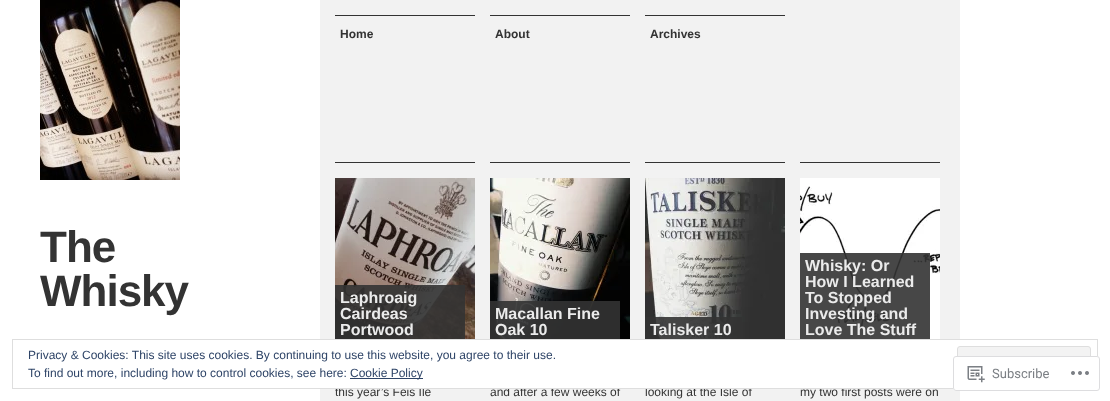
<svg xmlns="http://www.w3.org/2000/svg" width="1110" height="401">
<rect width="100%" height="100%" fill="#fff"/>
<rect x="320" width="640" height="401" fill="#f2f2f2"/>
<image x="40" y="0" width="140" height="180" href="media/1.png"/>
<text x="40" y="262" style="font-family:Liberation Sans;font-size:44px;font-weight:bold;letter-spacing:-1px;fill:#333">The</text>
<text x="40" y="306" style="font-family:Liberation Sans;font-size:44px;font-weight:bold;letter-spacing:-1px;fill:#333">Whisky</text>
<rect x="335" y="15" width="140" height="1" fill="#333"/>
<text x="340" y="38" style="font-family:Liberation Sans;font-size:12px;font-weight:bold;fill:#333">Home</text>
<rect x="490" y="15" width="140" height="1" fill="#333"/>
<text x="495" y="38" style="font-family:Liberation Sans;font-size:12px;font-weight:bold;fill:#333">About</text>
<rect x="645" y="15" width="140" height="1" fill="#333"/>
<text x="650" y="38" style="font-family:Liberation Sans;font-size:12px;font-weight:bold;fill:#333">Archives</text>
<rect x="335" y="162" width="140" height="1" fill="#333"/>
<image x="335" y="178" width="140" height="161" href="media/2.png"/>
<rect x="335" y="285" width="130" height="54" fill="#333333e6"/>
<text x="340" y="303" style="font-family:Liberation Sans;font-size:16px;font-weight:bold;fill:#ebebeb">Laphroaig</text>
<text x="340" y="319" style="font-family:Liberation Sans;font-size:16px;font-weight:bold;fill:#ebebeb">Cairdeas</text>
<text x="340" y="335" style="font-family:Liberation Sans;font-size:16px;font-weight:bold;fill:#ebebeb">Portwood</text>
<text x="335" y="396" style="font-family:Liberation Sans;font-size:12px;fill:#333">this year’s Feis Ile</text>
<rect x="490" y="162" width="140" height="1" fill="#333"/>
<image x="490" y="178" width="140" height="161" href="media/3.png"/>
<rect x="490" y="301" width="130" height="38" fill="#333333e6"/>
<text x="495" y="319" style="font-family:Liberation Sans;font-size:16px;font-weight:bold;fill:#ebebeb">Macallan Fine</text>
<text x="495" y="335" style="font-family:Liberation Sans;font-size:16px;font-weight:bold;fill:#ebebeb">Oak 10</text>
<text x="490" y="396" style="font-family:Liberation Sans;font-size:12px;fill:#333">and after a few weeks of</text>
<rect x="645" y="162" width="140" height="1" fill="#333"/>
<image x="645" y="178" width="140" height="161" href="media/4.png"/>
<rect x="645" y="317" width="97" height="22" fill="#333333e6"/>
<text x="650" y="335" style="font-family:Liberation Sans;font-size:16px;font-weight:bold;fill:#ebebeb">Talisker 10</text>
<text x="645" y="396" style="font-family:Liberation Sans;font-size:12px;fill:#333">looking at the Isle of</text>
<rect x="800" y="162" width="140" height="1" fill="#333"/>
<image x="800" y="178" width="140" height="161" href="media/5.png"/>
<rect x="800" y="253" width="130" height="86" fill="#333333e6"/>
<text x="805" y="271" style="font-family:Liberation Sans;font-size:16px;font-weight:bold;fill:#ebebeb">Whisky: Or</text>
<text x="805" y="287" style="font-family:Liberation Sans;font-size:16px;font-weight:bold;fill:#ebebeb">How I Learned</text>
<text x="805" y="303" style="font-family:Liberation Sans;font-size:16px;font-weight:bold;fill:#ebebeb">To Stopped</text>
<text x="805" y="319" style="font-family:Liberation Sans;font-size:16px;font-weight:bold;fill:#ebebeb">Investing and</text>
<text x="805" y="335" style="font-family:Liberation Sans;font-size:16px;font-weight:bold;fill:#ebebeb">Love The Stuff</text>
<text x="800" y="396" style="font-family:Liberation Sans;font-size:12px;fill:#333">my two first posts were on</text>
<rect x="320" y="340" width="640" height="48" fill="#fff"/>
<rect x="12.5" y="339.5" width="1085" height="49" fill="none" stroke="#dedede"/>
<text x="28" y="359" style="font-family:Liberation Sans;font-size:12px;fill:#2e4467">Privacy &amp; Cookies: This site uses cookies. By continuing to use this website, you agree to their use.</text>
<rect x="957.5" y="346.5" width="133" height="24" rx="2.5" fill="#f3f3f3" stroke="#dedede"/>
<text x="28" y="377" style="font-family:Liberation Sans;font-size:12px;fill:#2e4467">To find out more, including how to control cookies, see here:</text>
<rect x="350" y="378" width="73" height="1" fill="#2e4467"/>
<text x="350" y="377" style="font-family:Liberation Sans;font-size:12px;fill:#2e4467">Cookie Policy</text>
<rect x="953" y="356" width="147" height="35" rx="3" fill="#fffffffa"/>
<rect x="953.5" y="356.5" width="146" height="34" rx="2.5" fill="none" stroke="#dcdcdefa"/>
<image x="967" y="366" width="18" height="17" href="media/6.png"/>
<text x="992" y="378" style="font-family:Roboto;font-size:13px;fill:#7b7f84">Subscribe</text>
<image x="1071" y="371" width="18" height="4" href="media/7.png"/>
</svg>
